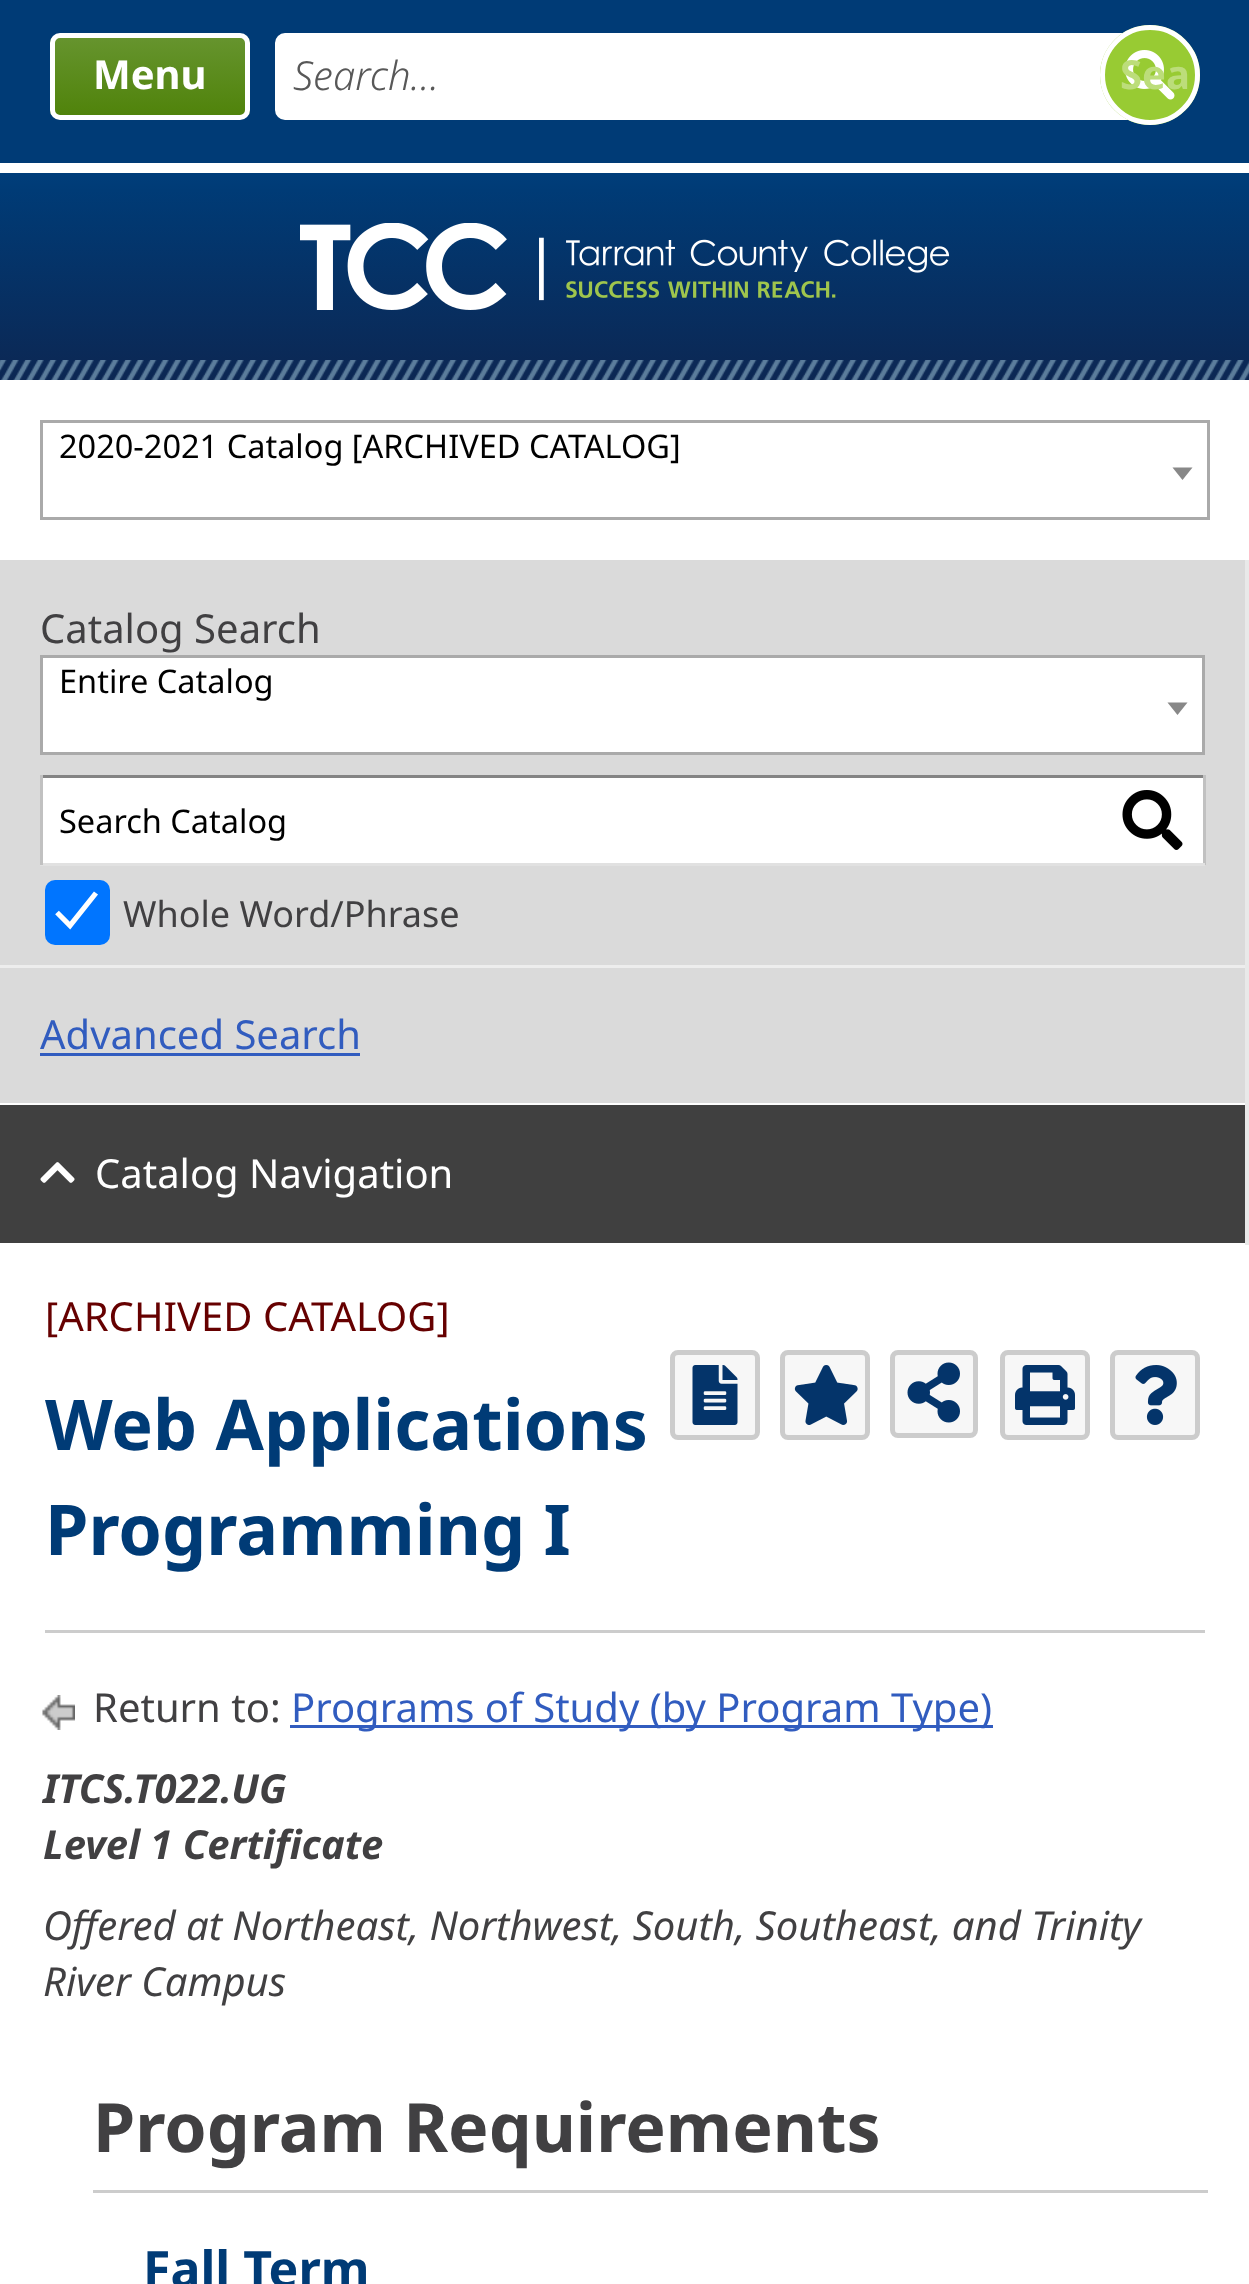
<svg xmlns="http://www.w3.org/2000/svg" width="1249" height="2284">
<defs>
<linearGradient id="g1" gradientUnits="userSpaceOnUse" x1="625" y1="0" x2="625" y2="380"><stop offset="0" stop-color="#005ca8"/><stop offset="0.5" stop-color="#003b76"/><stop offset="1" stop-color="#0c2753"/></linearGradient>
<clipPath id="clip1"><rect x="50" y="33" width="200" height="87" rx="10"/></clipPath>
<linearGradient id="g2" gradientUnits="userSpaceOnUse" x1="150" y1="37" x2="150" y2="115"><stop offset="0" stop-color="#66942e"/><stop offset="1" stop-color="#50830b"/></linearGradient>
</defs>
<rect width="100%" height="100%" fill="#fff"/>
<rect y="173" width="1249" height="207" fill="url(#g1)"/>
<rect width="1249" height="163" fill="#003b76"/>
<g clip-path="url(#clip1)">
<rect x="50" y="38" width="200" height="77" fill="url(#g2)"/>
</g>
<rect x="52.5" y="35.5" width="195" height="82" rx="7.5" fill="none" stroke="#fff" stroke-width="5"/>
<text x="93" y="89" style="font-family:Noto Sans;font-size:40px;font-weight:bold;fill:#fff">Menu</text>
<path d="M285 35.5h862.5v82h-862.5c-4 0-7.5-3.5-7.5-7.5v-67c0-4 3.5-7.5 7.5-7.5z" fill="#fff" stroke="#fff" stroke-width="5"/>
<text x="293" y="90" style="font-family:Noto Sans;font-size:40px;font-weight:300;font-style:italic;fill:#585858">Search…</text>
<circle cx="1150" cy="75" r="50" fill="#98cb33"/>
<image x="1125" y="50" width="50" height="50" href="media/1.png"/>
<circle cx="1150" cy="75" r="47.5" fill="none" stroke="#fff" stroke-width="5"/>
<text x="1120" y="89" style="font-family:Noto Sans;font-size:40px;font-weight:bold;fill:#bcdd7a">Sea</text>
<image x="300" y="223" width="650" height="87" href="media/2.png"/>
<image x="0" y="360" width="1249" height="20" href="media/3.png"/>
<rect x="41.5" y="421.5" width="1167" height="97" fill="none" stroke="#aaa" stroke-width="3"/>
<text x="59" y="458" style="font-family:Noto Sans;font-size:32.5px;fill:#000">2020-2021 Catalog [ARCHIVED CATALOG]</text>
<path d="M1172.5 467.5h20l-10 12.5z" fill="#888"/>
<rect x="1245" y="560" width="4" height="685" fill="#e9e9e9"/>
<rect y="560" width="1245" height="543" fill="#dadada"/>
<text x="40" y="643" style="font-family:Noto Sans;font-size:40px;fill:#414042">Catalog Search</text>
<rect x="41.5" y="656.5" width="1162" height="97" fill="#fff" stroke="#aaa" stroke-width="3"/>
<text x="59" y="693" style="font-family:Noto Sans;font-size:32.5px;fill:#000">Entire Catalog</text>
<path d="M1167.5 702.5h20l-10 12.5z" fill="#888"/>
<rect x="43" y="778" width="1160" height="85" fill="#fff"/>
<rect x="40" y="775" width="1165" height="3" fill="#848484"/>
<rect x="1203" y="775" width="3" height="90" fill="#c1c1c1"/>
<rect x="40" y="863" width="1165" height="3" fill="#e1e1e1"/>
<rect x="40" y="775" width="3" height="90" fill="#c1c1c1"/>
<text x="59" y="833" style="font-family:Noto Sans;font-size:32.5px;fill:#000">Search Catalog</text>
<image x="1122" y="790" width="61" height="60" href="media/4.png"/>
<rect x="45" y="880" width="65" height="65" rx="10" fill="#0075ff"/>
<path d="M57 912.5l13 13l26-32.5" fill="none" stroke="#fff" stroke-width="5.2"/>
<text x="123" y="927" style="font-family:Noto Sans;font-size:36px;fill:#414042">Whole Word/Phrase</text>
<rect y="965" width="1245" height="3" fill="#ededed"/>
<text x="40" y="1049" style="font-family:Noto Sans;font-size:40px;fill:#315cbf">Advanced Search</text>
<rect x="40" y="1053" width="320" height="3" fill="#315cbf"/>
<rect y="1105" width="1245" height="138" fill="#404040"/>
<image x="40" y="1162" width="35" height="21" href="media/5.png"/>
<text x="95" y="1188" style="font-family:Noto Sans;font-size:40px;fill:#fff">Catalog Navigation</text>
<text x="45" y="1331" style="font-family:Noto Sans;font-size:40px;fill:#600">[ARCHIVED CATALOG]</text>
<text x="45" y="1450" style="font-family:Noto Sans;font-size:70px;font-weight:bold;fill:#003b76">Web Applications</text>
<text x="45" y="1555" style="font-family:Noto Sans;font-size:70px;font-weight:bold;fill:#003b76">Programming I</text>
<rect x="675" y="1355" width="80" height="80" rx="2.5" fill="#f7f7f7"/>
<rect x="672.5" y="1352.5" width="85" height="85" rx="5.5" fill="none" stroke="#ccc" stroke-width="5"/>
<image x="692" y="1365" width="46" height="60" href="media/6.png"/>
<rect x="785" y="1355" width="80" height="80" rx="2.5" fill="#f7f7f7"/>
<rect x="782.5" y="1352.5" width="85" height="85" rx="5.5" fill="none" stroke="#ccc" stroke-width="5"/>
<image x="794" y="1365" width="64" height="60" href="media/7.png"/>
<rect x="895" y="1355" width="78" height="78" rx="2.5" fill="#f7f7f7"/>
<rect x="892.5" y="1352.5" width="83" height="83" rx="5.5" fill="none" stroke="#ccc" stroke-width="5"/>
<image x="907" y="1362" width="53" height="61" href="media/8.png"/>
<rect x="1005" y="1355" width="80" height="80" rx="2.5" fill="#f7f7f7"/>
<rect x="1002.5" y="1352.5" width="85" height="85" rx="5.5" fill="none" stroke="#ccc" stroke-width="5"/>
<image x="1015" y="1365" width="60" height="60" href="media/9.png"/>
<rect x="1115" y="1355" width="80" height="80" rx="2.5" fill="#f7f7f7"/>
<rect x="1112.5" y="1352.5" width="85" height="85" rx="5.5" fill="none" stroke="#ccc" stroke-width="5"/>
<image x="1135" y="1365" width="42" height="60" href="media/10.png"/>
<rect x="45" y="1630" width="1160" height="3" fill="#ccc"/>
<image x="42" y="1695" width="33" height="35" href="media/11.png"/>
<text x="93" y="1722" style="font-family:Noto Sans;font-size:40px;fill:#414042">Return to:</text>
<rect x="290" y="1725" width="703" height="3" fill="#315cbf"/>
<text x="291" y="1722" style="font-family:Noto Sans;font-size:40px;fill:#315cbf">Programs of Study (by Program Type)</text>
<text x="43" y="1803" style="font-family:Noto Sans;font-size:40px;font-weight:bold;font-style:italic;fill:#414042">ITCS.T022.UG</text>
<text x="43" y="1859" style="font-family:Noto Sans;font-size:40px;font-weight:bold;font-style:italic;fill:#414042">Level 1 Certificate</text>
<text x="43" y="1940" style="font-family:Noto Sans;font-size:40px;font-style:italic;fill:#414042">Offered at Northeast, Northwest, South, Southeast, and Trinity</text>
<text x="43" y="1996" style="font-family:Noto Sans;font-size:40px;font-style:italic;fill:#414042">River Campus</text>
<text x="93" y="2152" style="font-family:Noto Sans;font-size:68px;font-weight:bold;fill:#414042">Program Requirements</text>
<rect x="93" y="2190" width="1115" height="3" fill="#ccc"/>
<text x="143" y="2287" style="font-family:Noto Sans;font-size:50px;font-weight:bold;fill:#003b76">Fall Term</text>
</svg>
